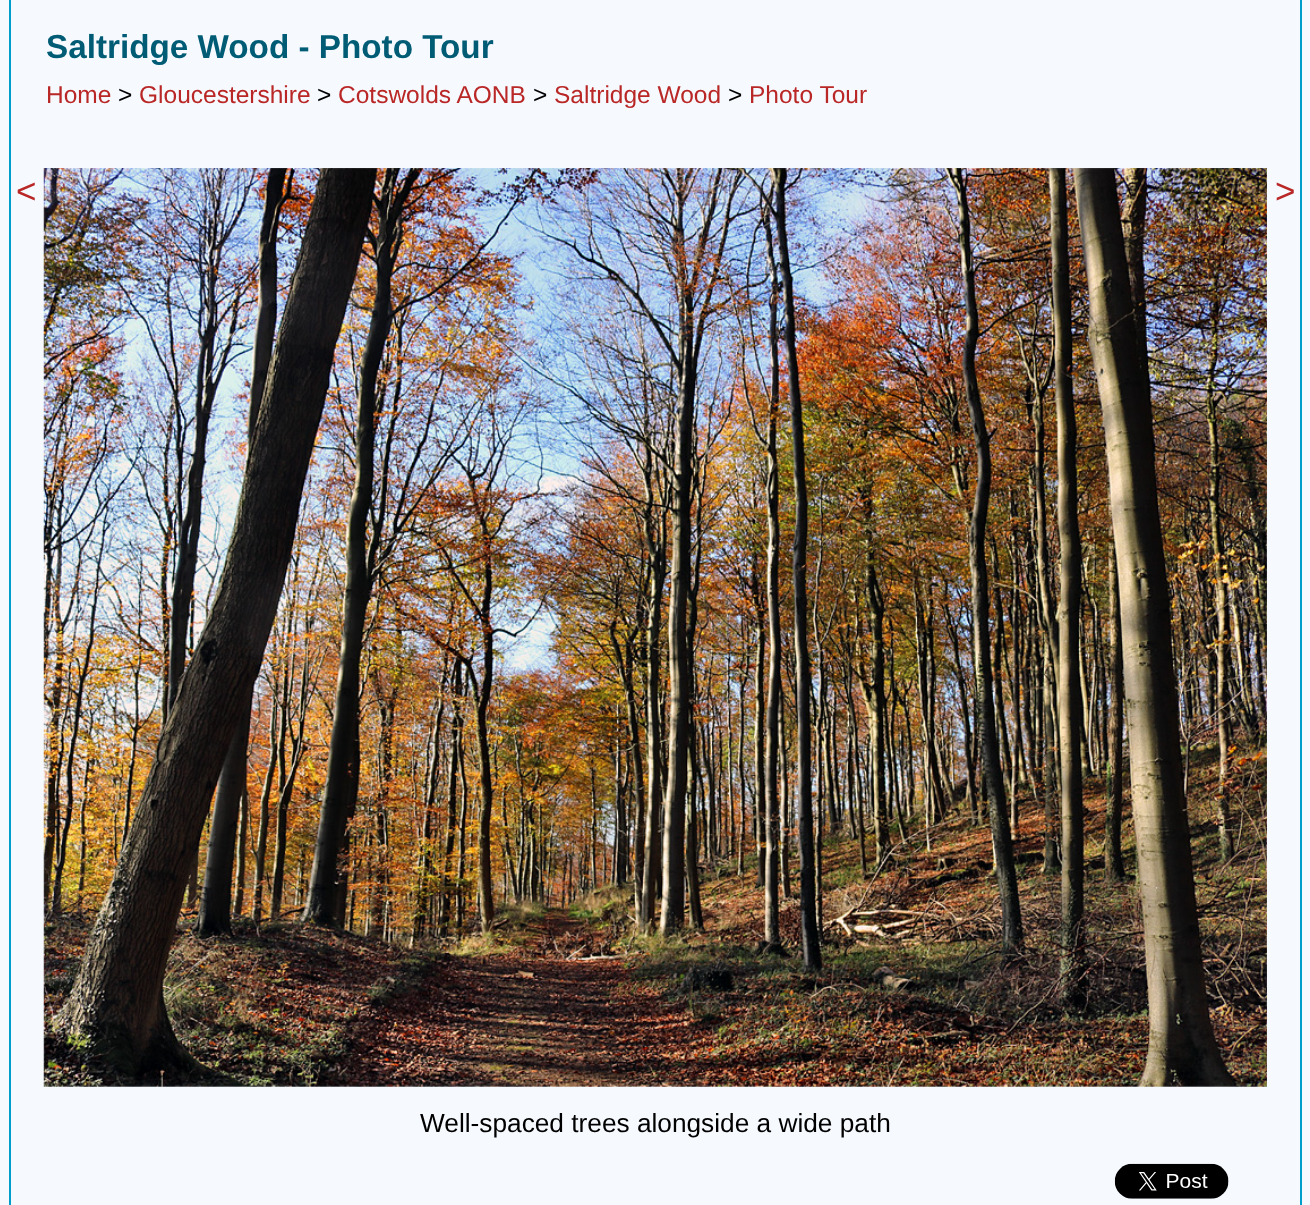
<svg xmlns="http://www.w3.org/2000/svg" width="1310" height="1205">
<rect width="100%" height="100%" fill="#f6faff"/>
<rect x="1300" width="2" height="1205" fill="#009fcb"/>
<rect x="9" width="2" height="1205" fill="#009fcb"/>
<text x="46" y="58" style="font-family:Liberation Sans;font-size:33.25px;font-weight:bold;fill:#005c75">Saltridge Wood - Photo Tour</text>
<text x="46" y="103" style="font-family:Liberation Sans;font-size:24.5px;fill:#b92726">Home</text>
<text x="118" y="103" style="font-family:Liberation Sans;font-size:24.5px;fill:#000">&gt;</text>
<text x="139" y="103" style="font-family:Liberation Sans;font-size:24.5px;fill:#b92726">Gloucestershire</text>
<text x="317" y="103" style="font-family:Liberation Sans;font-size:24.5px;fill:#000">&gt;</text>
<text x="338" y="103" style="font-family:Liberation Sans;font-size:24.5px;fill:#b92726">Cotswolds AONB</text>
<text x="533" y="103" style="font-family:Liberation Sans;font-size:24.5px;fill:#000">&gt;</text>
<text x="554" y="103" style="font-family:Liberation Sans;font-size:24.5px;fill:#b92726">Saltridge Wood</text>
<text x="728" y="103" style="font-family:Liberation Sans;font-size:24.5px;fill:#000">&gt;</text>
<text x="749" y="103" style="font-family:Liberation Sans;font-size:24.5px;fill:#b92726">Photo Tour</text>
<text x="16" y="203" style="font-family:Liberation Sans;font-size:35px;fill:#b92726">&lt;</text>
<text x="1275" y="203" style="font-family:Liberation Sans;font-size:35px;fill:#b92726">&gt;</text>
<image x="43" y="168" width="1224" height="919" href="media/1.png"/>
<text x="420" y="1132" style="font-family:Liberation Sans;font-size:26.25px;fill:#000">Well-spaced trees alongside a wide path</text>
<image x="1114" y="1163" width="115" height="36" href="media/2.png"/>
</svg>
